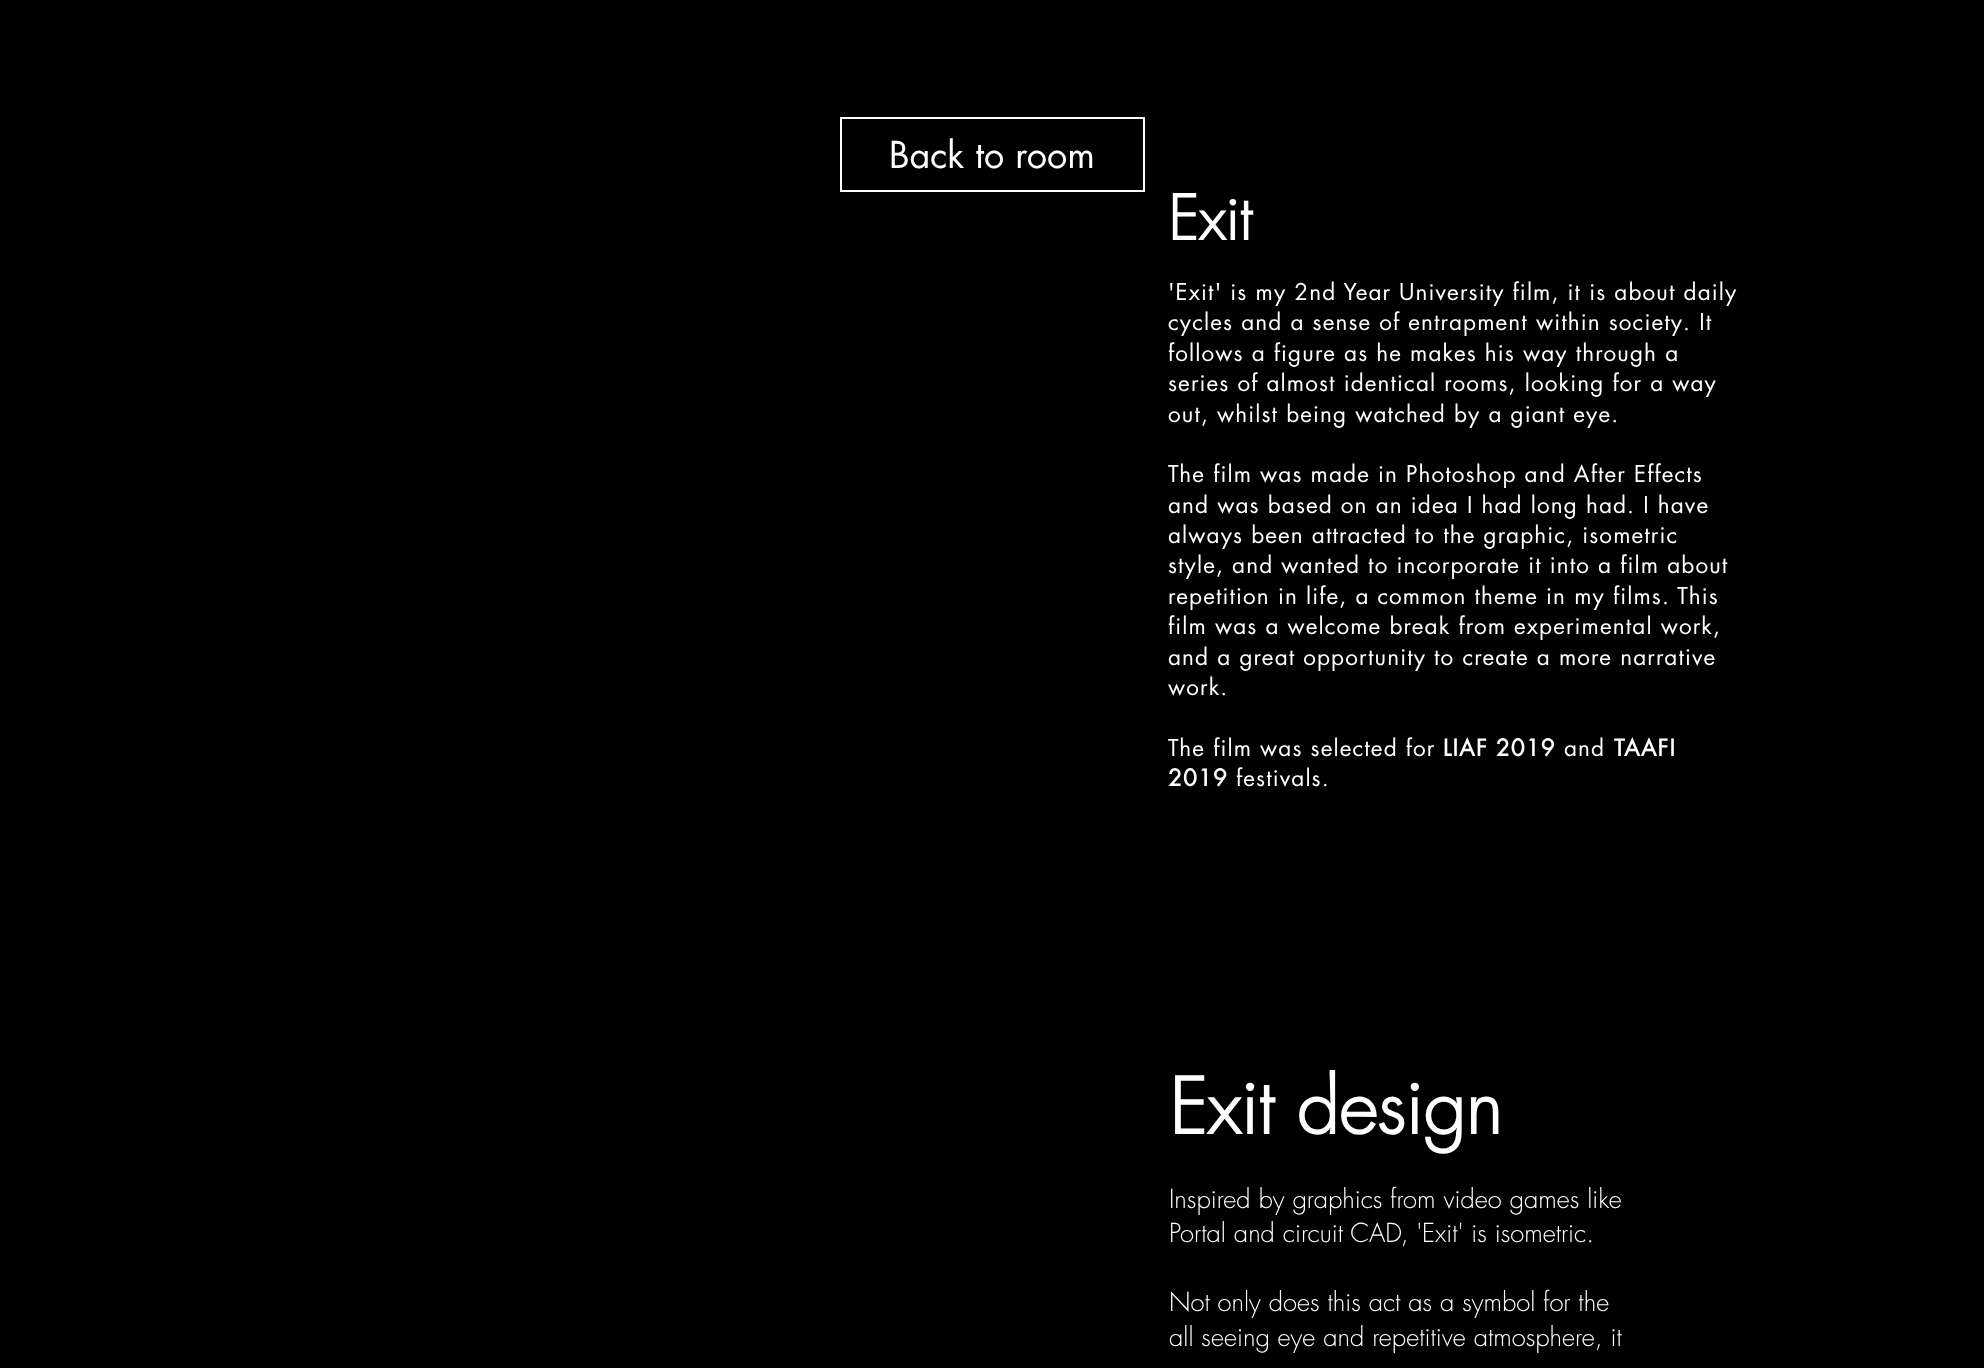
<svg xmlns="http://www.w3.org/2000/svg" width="1984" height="1368">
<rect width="100%" height="100%" fill="#000"/>
<rect x="841" y="118" width="303" height="73" fill="none" stroke="#fff" stroke-width="2"/>
<text x="889" y="168" style="font-family:futura;font-size:36px;fill:#fff">Back to room</text>
<text x="1168" y="240" style="font-family:futura;font-size:60px;font-weight:bold;fill:#fff">Exit</text>
<text x="1168" y="300" style="font-family:futura;font-size:22.5px;letter-spacing:1.12px;fill:#fff">'Exit' is my 2nd Year University film, it is about daily</text>
<text x="1168" y="330" style="font-family:futura;font-size:22.5px;letter-spacing:1.12px;fill:#fff">cycles and a sense of entrapment within society. It</text>
<text x="1168" y="361" style="font-family:futura;font-size:22.5px;letter-spacing:1.12px;fill:#fff">follows a figure as he makes his way through a</text>
<text x="1168" y="391" style="font-family:futura;font-size:22.5px;letter-spacing:1.12px;fill:#fff">series of almost identical rooms, looking for a way</text>
<text x="1168" y="422" style="font-family:futura;font-size:22.5px;letter-spacing:1.12px;fill:#fff">out, whilst being watched by a giant eye.</text>
<text x="1168" y="482" style="font-family:futura;font-size:22.5px;letter-spacing:1.12px;fill:#fff">The film was made in Photoshop and After Effects</text>
<text x="1168" y="513" style="font-family:futura;font-size:22.5px;letter-spacing:1.12px;fill:#fff">and was based on an idea I had long had. I have</text>
<text x="1168" y="543" style="font-family:futura;font-size:22.5px;letter-spacing:1.12px;fill:#fff">always been attracted to the graphic, isometric</text>
<text x="1168" y="573" style="font-family:futura;font-size:22.5px;letter-spacing:1.12px;fill:#fff">style, and wanted to incorporate it into a film about</text>
<text x="1168" y="604" style="font-family:futura;font-size:22.5px;letter-spacing:1.12px;fill:#fff">repetition in life, a common theme in my films. This</text>
<text x="1168" y="634" style="font-family:futura;font-size:22.5px;letter-spacing:1.12px;fill:#fff">film was a welcome break from experimental work,</text>
<text x="1168" y="665" style="font-family:futura;font-size:22.5px;letter-spacing:1.12px;fill:#fff">and a great opportunity to create a more narrative</text>
<text x="1168" y="695" style="font-family:futura;font-size:22.5px;letter-spacing:1.12px;fill:#fff">work.</text>
<text x="1168" y="756" style="font-family:futura;font-size:22.5px;letter-spacing:1.12px;fill:#fff">The film was selected for</text>
<text x="1443" y="756" style="font-family:'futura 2';font-size:22.5px;font-weight:bold;letter-spacing:1.12px;fill:#fff">LIAF 2019</text>
<text x="1564" y="756" style="font-family:futura;font-size:22.5px;letter-spacing:1.12px;fill:#fff">and</text>
<text x="1614" y="756" style="font-family:'futura 2';font-size:22.5px;font-weight:bold;letter-spacing:1.12px;fill:#fff">TAAFI</text>
<text x="1168" y="786" style="font-family:'futura 2';font-size:22.5px;font-weight:bold;letter-spacing:1.12px;fill:#fff">2019</text>
<text x="1236" y="786" style="font-family:futura;font-size:22.5px;letter-spacing:1.12px;fill:#fff">festivals.</text>
<text x="1169" y="1134" style="font-family:futura;font-size:75px;font-weight:bold;fill:#fff">Exit design</text>
<text x="1169" y="1208" style="font-family:futura;font-size:25.5px;font-weight:300;fill:#fff">Inspired by graphics from video games like</text>
<text x="1169" y="1242" style="font-family:futura;font-size:25.5px;font-weight:300;fill:#fff">Portal and circuit CAD, 'Exit' is isometric.</text>
<text x="1169" y="1311" style="font-family:futura;font-size:25.5px;font-weight:300;fill:#fff">Not only does this act as a symbol for the</text>
<text x="1169" y="1346" style="font-family:futura;font-size:25.5px;font-weight:300;fill:#fff">all seeing eye and repetitive atmosphere, it</text>
</svg>
